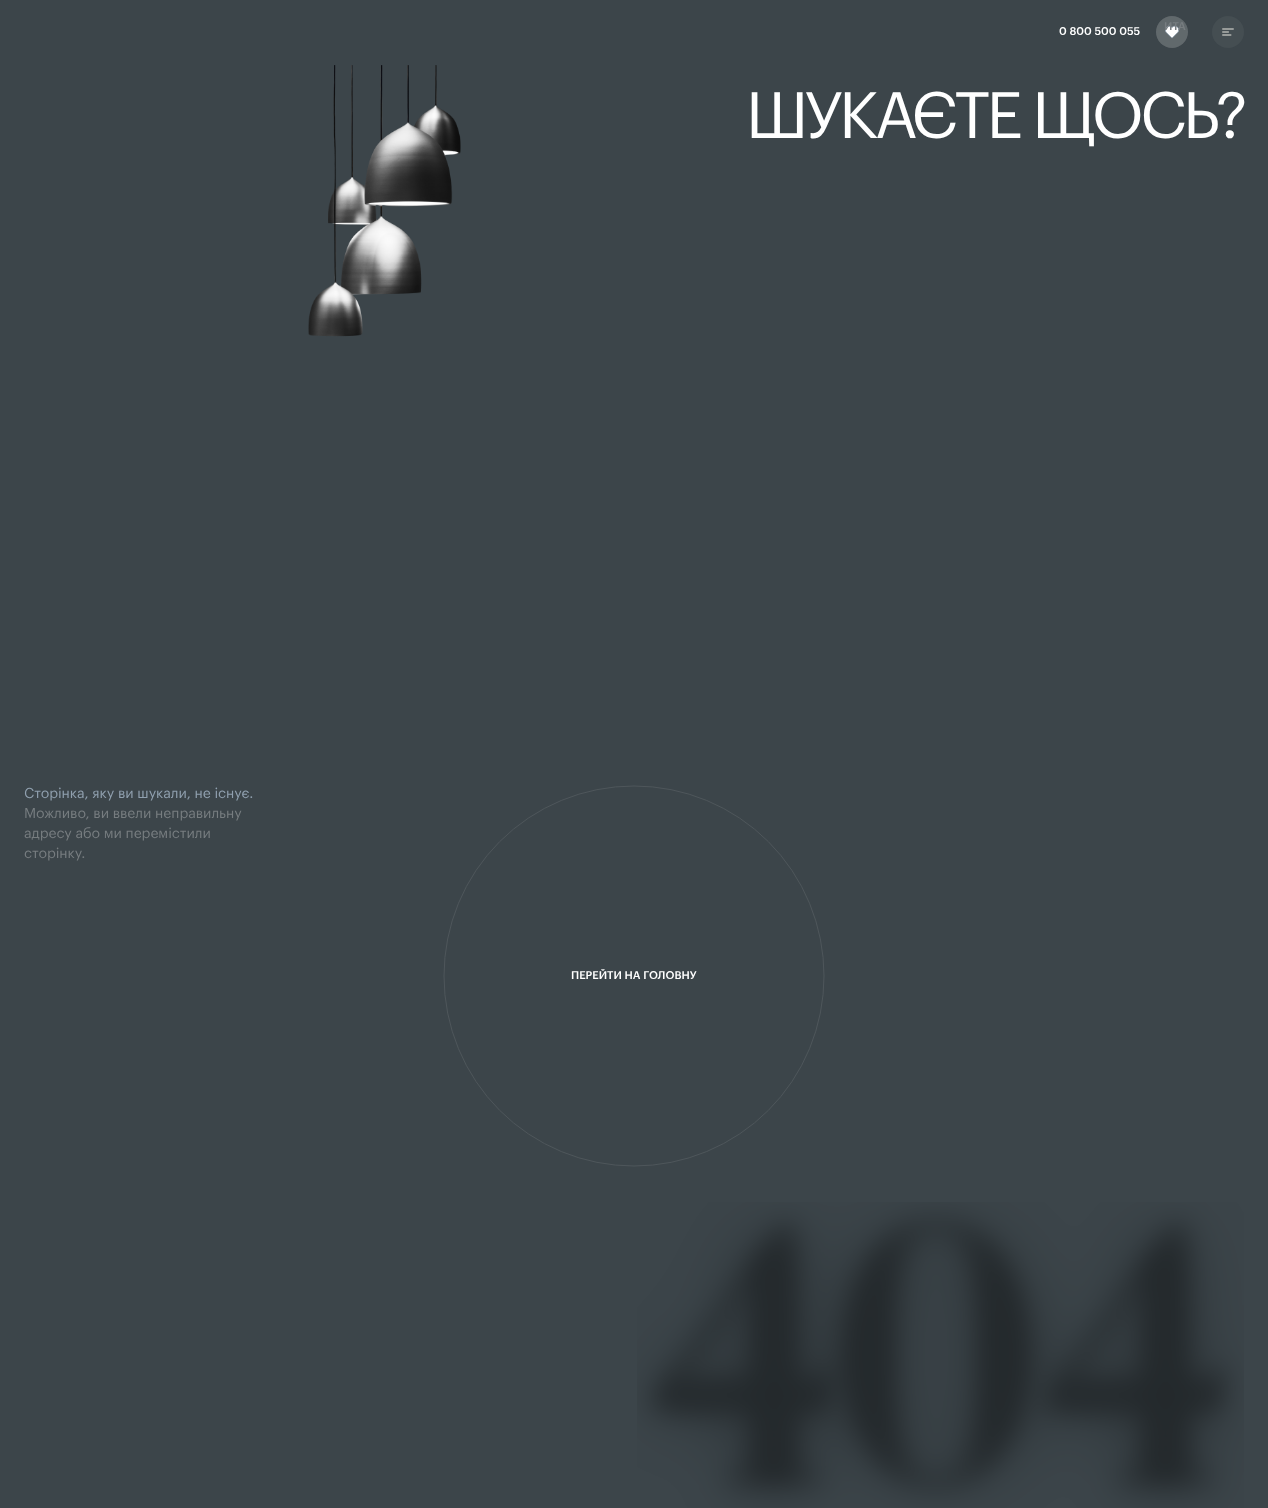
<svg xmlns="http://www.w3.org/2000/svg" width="1268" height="1508">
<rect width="100%" height="100%" fill="#3c454a"/>
<circle cx="1172" cy="32" r="16" fill="#50585c"/>
<circle cx="1172" cy="32" r="16" fill="#ffffff1a"/>
<image x="1165" y="25" width="14" height="14" href="media/1.png"/>
<text x="1164" y="30" style="font-family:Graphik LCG;font-size:11px;font-weight:500;fill:#777d80">ИТА</text>
<circle cx="1228" cy="32" r="16" fill="#454e52"/>
<image x="1222" y="28" width="12" height="8" href="media/2.png"/>
<text x="1059" y="35" style="font-family:Graphik LCG;font-size:11px;font-weight:500;fill:#fff">0 800 500 055</text>
<image x="308" y="65" width="153" height="272" href="media/3.png"/>
<text x="746" y="138" style="font-family:Graphik LCG;font-size:64px;letter-spacing:-3.6px;fill:#fff">ШУКАЄТЕ ЩОСЬ?</text>
<text x="24" y="798" style="font-family:Graphik LCG;font-size:14px;fill:#90a0af">Сторінка, яку ви шукали, не існує.</text>
<text x="24" y="818" style="font-family:Graphik LCG;font-size:14px;fill:#777d80">Можливо, ви ввели неправильну</text>
<text x="24" y="838" style="font-family:Graphik LCG;font-size:14px;fill:#777d80">адресу або ми перемістили</text>
<text x="24" y="858" style="font-family:Graphik LCG;font-size:14px;fill:#777d80">сторінку.</text>
<circle cx="634" cy="976" r="190" fill="none" stroke="#50585c" stroke-width="0.9"/>
<text x="571" y="979" style="font-family:Graphik LCG;font-size:11px;font-weight:500;fill:#fff">ПЕРЕЙТИ НА ГОЛОВНУ</text>
<image x="637" y="1202" width="607" height="306" href="media/4.png"/>
</svg>
